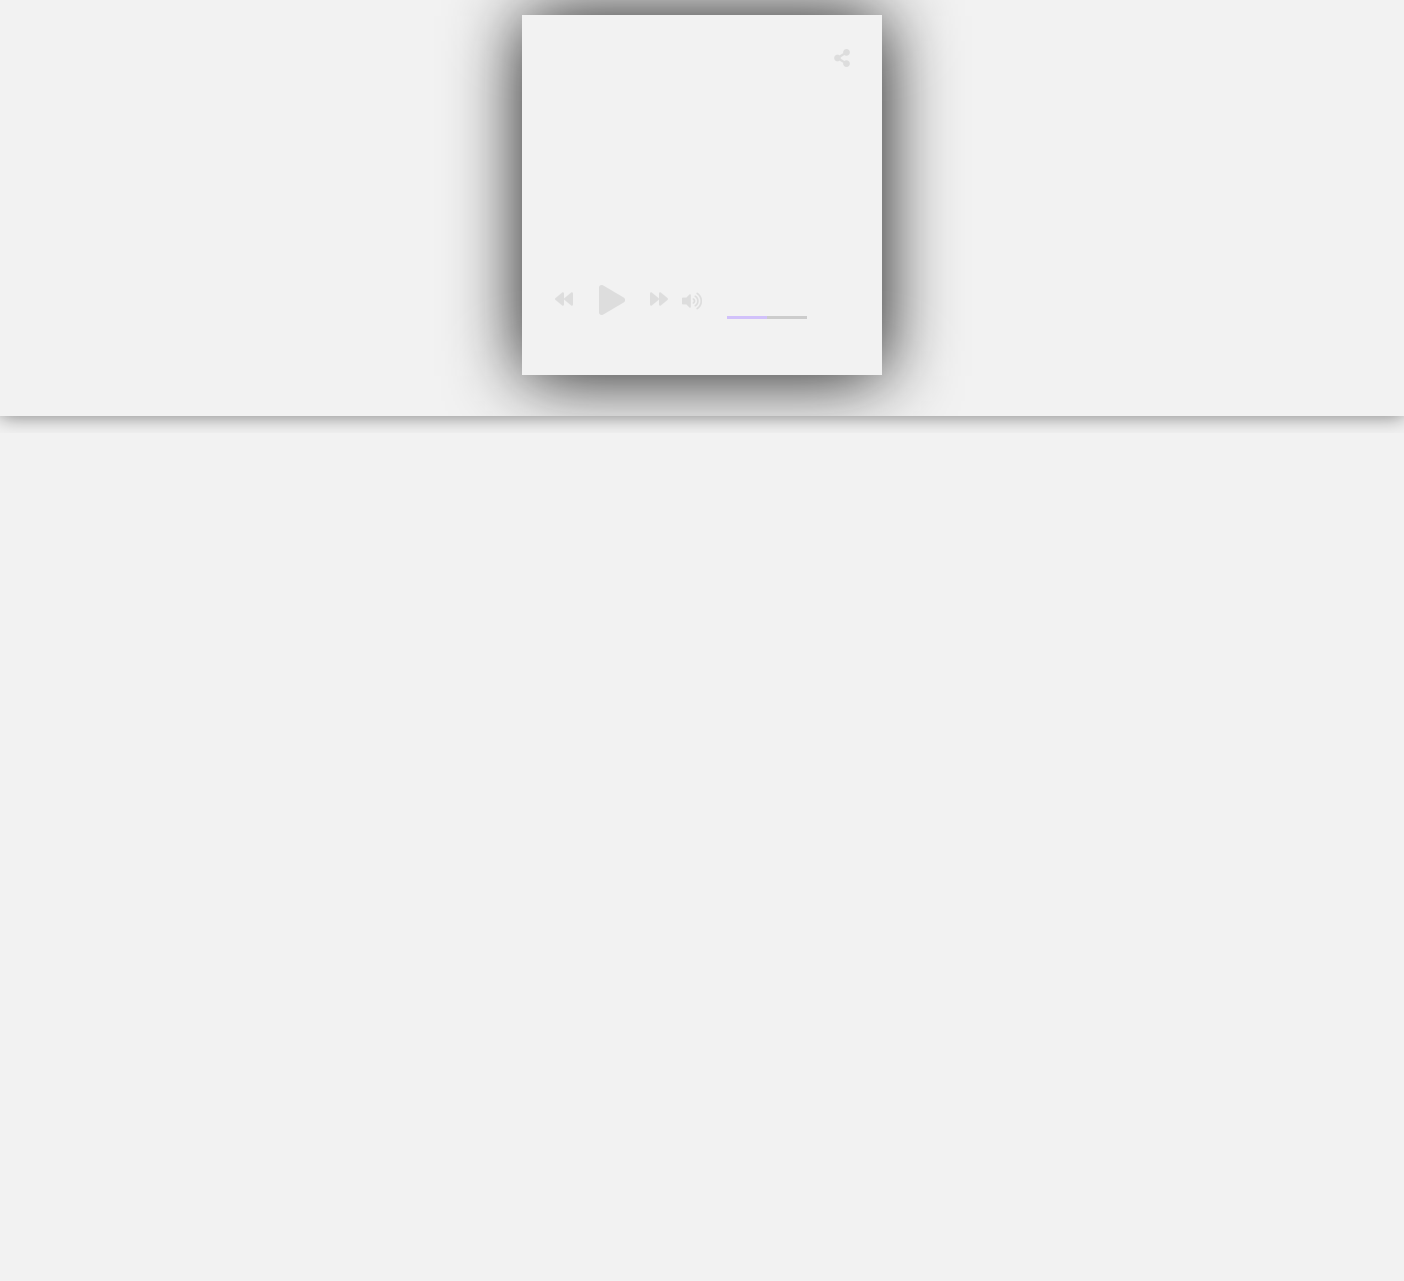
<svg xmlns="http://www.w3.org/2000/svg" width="1404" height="1281">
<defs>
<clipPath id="clip1"><rect x="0" y="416" width="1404" height="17"/></clipPath>
<clipPath id="clip2"><rect x="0" y="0" width="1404" height="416"/></clipPath>
<clipPath id="clip3"><path d="M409 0h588v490h-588zm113 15h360v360h-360z" clip-rule="evenodd"/></clipPath>
</defs>
<rect width="100%" height="100%" fill="#f2f2f2"/>
<g clip-path="url(#clip1)">
<rect width="1404" height="416" fill="#00000080" filter="blur(10px)"/>
</g>
<g clip-path="url(#clip2)">
<g clip-path="url(#clip3)">
<rect x="523" y="16" width="360" height="360" fill="#111" filter="blur(37.5px)"/>
</g>
</g>
<image x="834" y="49" width="16" height="18" href="media/1.png"/>
<image x="555" y="292" width="18" height="14" href="media/2.png"/>
<image x="599" y="285" width="26" height="30" href="media/3.png"/>
<image x="650" y="292" width="18" height="14" href="media/4.png"/>
<image x="682" y="292" width="20" height="18" href="media/5.png"/>
<rect x="767" y="316" width="40" height="3" fill="#ccc"/>
<rect x="727" y="316" width="40" height="3" fill="#d1c1fa"/>
</svg>
